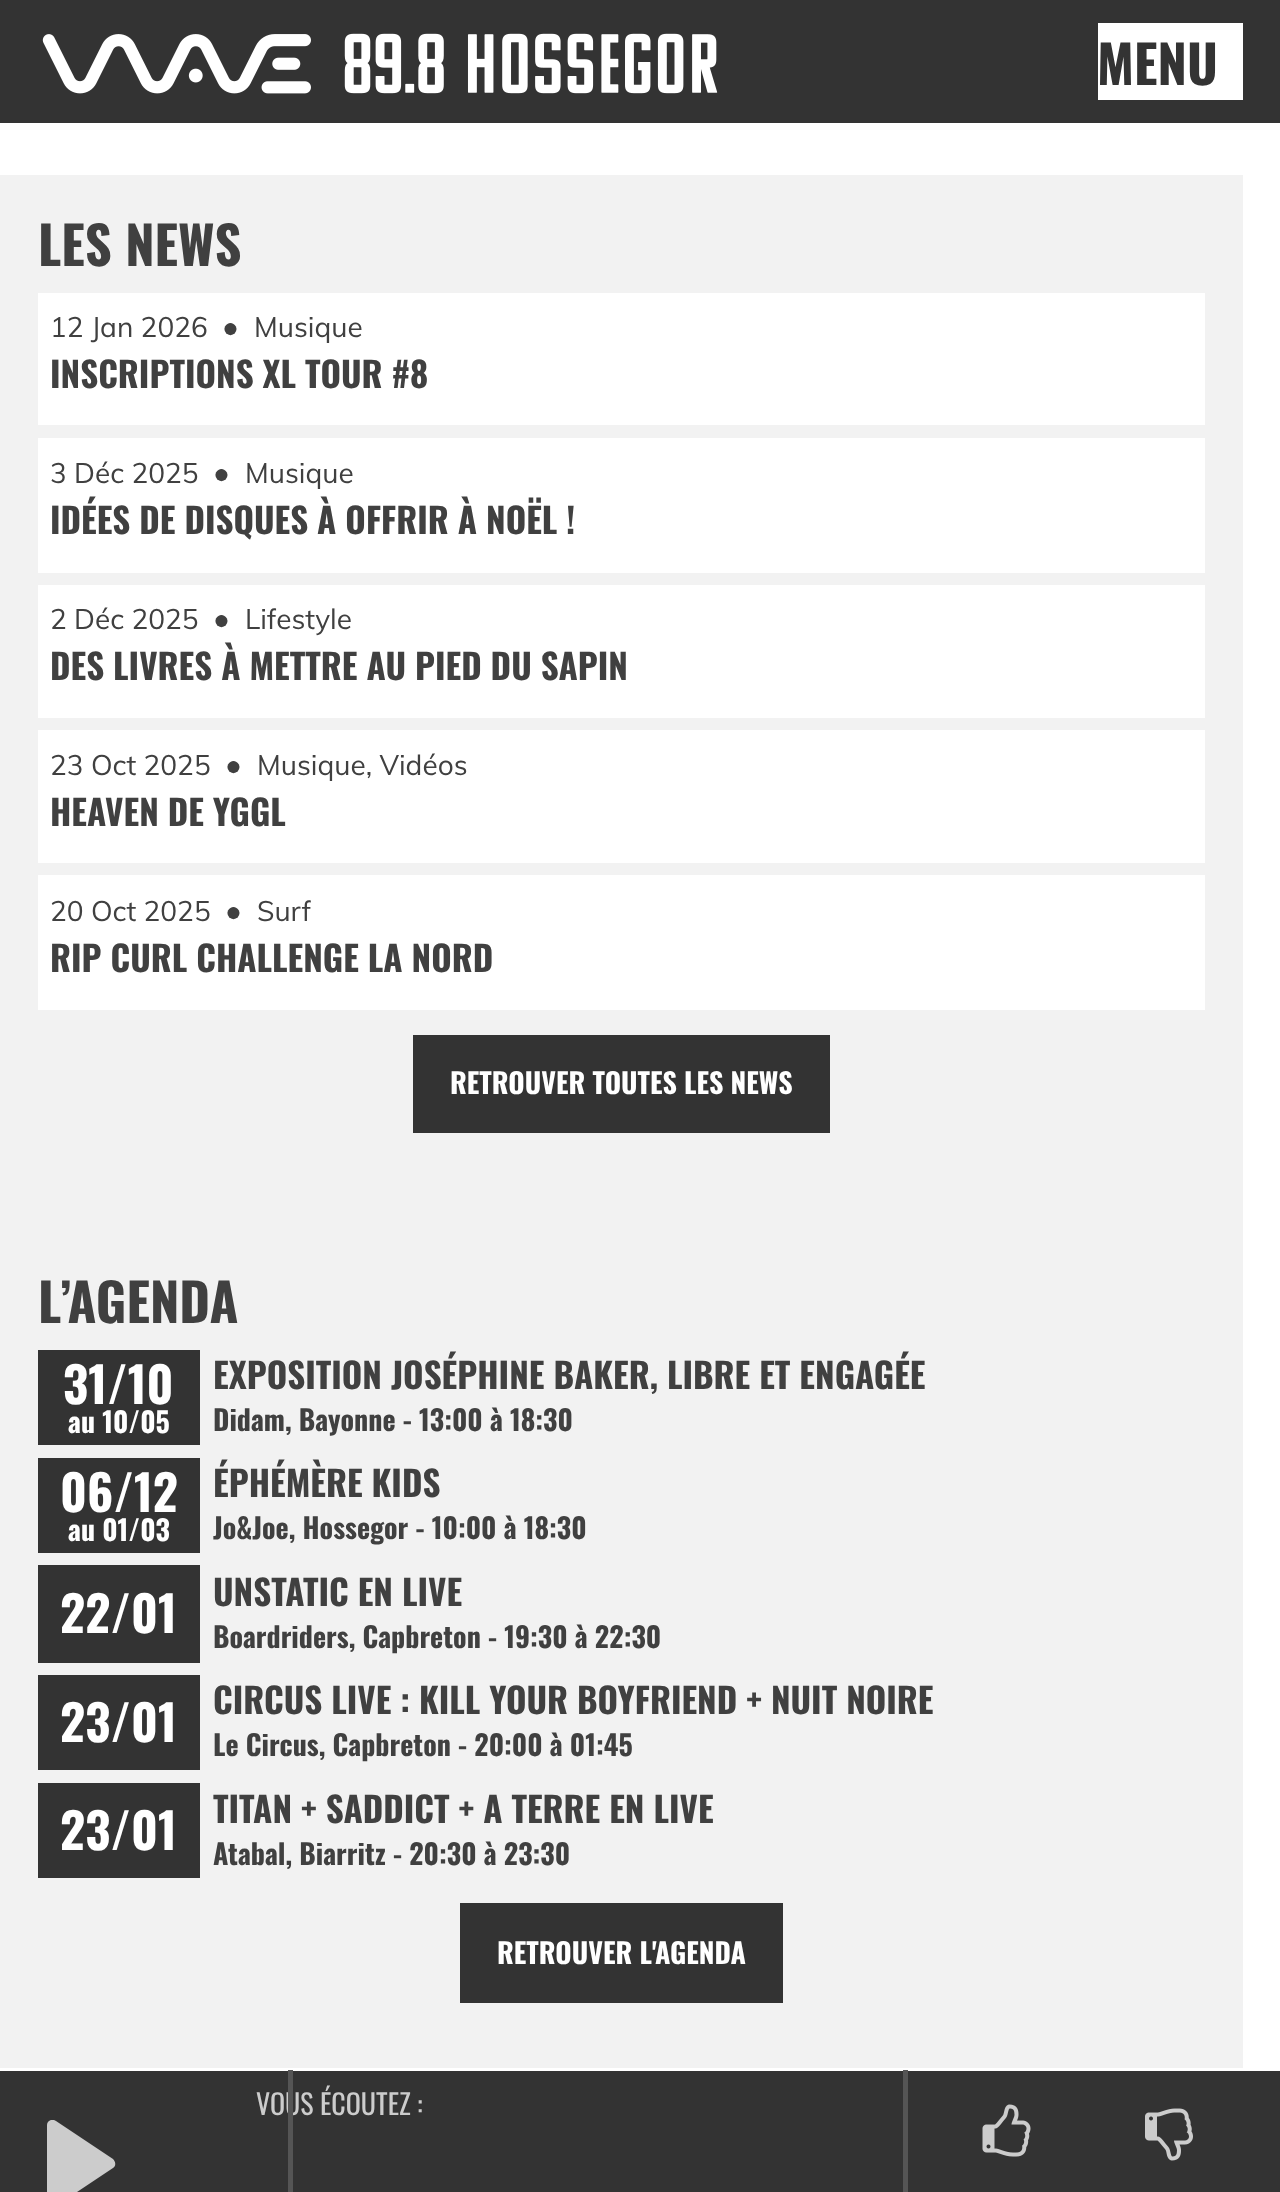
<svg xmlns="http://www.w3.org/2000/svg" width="1280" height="2192">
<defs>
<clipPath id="clip1"><rect x="38" y="2120" width="87" height="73"/></clipPath>
</defs>
<rect width="100%" height="100%" fill="#fff"/>
<rect width="1280" height="123" fill="#333"/>
<image x="42" y="33" width="676" height="61" href="media/1.png"/>
<rect x="1098" y="23" width="145" height="77" fill="#fff"/>
<text x="1097" y="85" style="font-family:Oswald;font-size:52.5px;font-weight:bold;fill:#333">MENU</text>
<rect y="175" width="1243" height="1893" fill="#f2f2f2"/>
<text x="38" y="266" style="font-family:Oswald;font-size:52.5px;font-weight:bold;fill:#404040">LES NEWS</text>
<rect x="38" y="293" width="1167" height="132" fill="#fff"/>
<text x="50" y="337" style="font-family:Muli;font-size:28px;fill:#404040">12 Jan 2026</text>
<text x="222" y="337" style="font-family:Liberation Sans;font-size:28px;fill:#404040">●</text>
<text x="254" y="337" style="font-family:Muli;font-size:28px;fill:#404040">Musique</text>
<text x="50" y="388" style="font-family:Oswald;font-size:35px;font-weight:bold;fill:#404040">INSCRIPTIONS XL TOUR #8</text>
<rect x="38" y="438" width="1167" height="135" fill="#fff"/>
<text x="50" y="483" style="font-family:Muli;font-size:28px;fill:#404040">3 Déc 2025</text>
<text x="213" y="483" style="font-family:Liberation Sans;font-size:28px;fill:#404040">●</text>
<text x="245" y="483" style="font-family:Muli;font-size:28px;fill:#404040">Musique</text>
<text x="50" y="534" style="font-family:Oswald;font-size:35px;font-weight:bold;fill:#404040">IDÉES DE DISQUES À OFFRIR À NOËL !</text>
<rect x="38" y="585" width="1167" height="133" fill="#fff"/>
<text x="50" y="629" style="font-family:Muli;font-size:28px;fill:#404040">2 Déc 2025</text>
<text x="213" y="629" style="font-family:Liberation Sans;font-size:28px;fill:#404040">●</text>
<text x="245" y="629" style="font-family:Muli;font-size:28px;fill:#404040">Lifestyle</text>
<text x="50" y="680" style="font-family:Oswald;font-size:35px;font-weight:bold;fill:#404040">DES LIVRES À METTRE AU PIED DU SAPIN</text>
<rect x="38" y="730" width="1167" height="133" fill="#fff"/>
<text x="50" y="775" style="font-family:Muli;font-size:28px;fill:#404040">23 Oct 2025</text>
<text x="225" y="775" style="font-family:Liberation Sans;font-size:28px;fill:#404040">●</text>
<text x="257" y="775" style="font-family:Muli;font-size:28px;fill:#404040">Musique, Vidéos</text>
<text x="50" y="826" style="font-family:Oswald;font-size:35px;font-weight:bold;fill:#404040">HEAVEN DE YGGL</text>
<rect x="38" y="875" width="1167" height="135" fill="#fff"/>
<text x="50" y="921" style="font-family:Muli;font-size:28px;fill:#404040">20 Oct 2025</text>
<text x="225" y="921" style="font-family:Liberation Sans;font-size:28px;fill:#404040">●</text>
<text x="257" y="921" style="font-family:Muli;font-size:28px;fill:#404040">Surf</text>
<text x="50" y="972" style="font-family:Oswald;font-size:35px;font-weight:bold;fill:#404040">RIP CURL CHALLENGE LA NORD</text>
<rect x="413" y="1035" width="417" height="98" fill="#333"/>
<text x="450" y="1094" style="font-family:Oswald;font-size:28px;font-weight:bold;fill:#fff">RETROUVER TOUTES LES NEWS</text>
<text x="38" y="1323" style="font-family:Oswald;font-size:52.5px;font-weight:bold;fill:#404040">L’AGENDA</text>
<rect x="38" y="1350" width="162" height="95" fill="#333"/>
<text x="63" y="1404" style="font-family:Oswald;font-size:49px;font-weight:bold;fill:#fff">31/10</text>
<text x="68" y="1433" style="font-family:Oswald;font-size:28px;font-weight:bold;fill:#fff">au 10/05</text>
<text x="213" y="1389" style="font-family:Oswald;font-size:35px;font-weight:bold;fill:#404040">EXPOSITION JOSÉPHINE BAKER, LIBRE ET ENGAGÉE</text>
<text x="213" y="1431" style="font-family:Oswald;font-size:28px;font-weight:bold;fill:#404040">Didam, Bayonne - 13:00 à 18:30</text>
<rect x="38" y="1458" width="162" height="95" fill="#333"/>
<text x="60" y="1512" style="font-family:Oswald;font-size:49px;font-weight:bold;fill:#fff">06/12</text>
<text x="68" y="1541" style="font-family:Oswald;font-size:28px;font-weight:bold;fill:#fff">au 01/03</text>
<text x="213" y="1497" style="font-family:Oswald;font-size:35px;font-weight:bold;fill:#404040">ÉPHÉMÈRE KIDS</text>
<text x="213" y="1539" style="font-family:Oswald;font-size:28px;font-weight:bold;fill:#404040">Jo&amp;Joe, Hossegor - 10:00 à 18:30</text>
<rect x="38" y="1565" width="162" height="98" fill="#333"/>
<text x="60" y="1633" style="font-family:Oswald;font-size:49px;font-weight:bold;fill:#fff">22/01</text>
<text x="213" y="1606" style="font-family:Oswald;font-size:35px;font-weight:bold;fill:#404040">UNSTATIC EN LIVE</text>
<text x="213" y="1648" style="font-family:Oswald;font-size:28px;font-weight:bold;fill:#404040">Boardriders, Capbreton - 19:30 à 22:30</text>
<rect x="38" y="1675" width="162" height="95" fill="#333"/>
<text x="60" y="1742" style="font-family:Oswald;font-size:49px;font-weight:bold;fill:#fff">23/01</text>
<text x="213" y="1714" style="font-family:Oswald;font-size:35px;font-weight:bold;fill:#404040">CIRCUS LIVE : KILL YOUR BOYFRIEND + NUIT NOIRE</text>
<text x="213" y="1756" style="font-family:Oswald;font-size:28px;font-weight:bold;fill:#404040">Le Circus, Capbreton - 20:00 à 01:45</text>
<rect x="38" y="1783" width="162" height="95" fill="#333"/>
<text x="60" y="1850" style="font-family:Oswald;font-size:49px;font-weight:bold;fill:#fff">23/01</text>
<text x="213" y="1823" style="font-family:Oswald;font-size:35px;font-weight:bold;fill:#404040">TITAN + SADDICT + A TERRE EN LIVE</text>
<text x="213" y="1865" style="font-family:Oswald;font-size:28px;font-weight:bold;fill:#404040">Atabal, Biarritz - 20:30 à 23:30</text>
<rect x="460" y="1903" width="323" height="100" fill="#333"/>
<text x="497" y="1964" style="font-family:Oswald;font-size:28px;font-weight:bold;fill:#fff">RETROUVER L'AGENDA</text>
<rect y="2071" width="1280" height="121" fill="#333"/>
<text x="256" y="2115" style="font-family:Oswald;font-size:28px;fill:#ccc">VOUS ÉCOUTEZ :</text>
<rect x="288" y="2070" width="5" height="122" fill="#555"/>
<g clip-path="url(#clip1)">
<path d="M113 2159l-57-38c-4-3-9 0-9 4v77c0 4 5 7 9 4l57-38c3-2 3-6 0-9z" fill="#ccc"/>
</g>
<rect x="903" y="2070" width="5" height="122" fill="#555"/>
<image x="982" y="2104" width="49" height="53" href="media/2.png"/>
<image x="1145" y="2108" width="48" height="53" href="media/3.png"/>
</svg>
